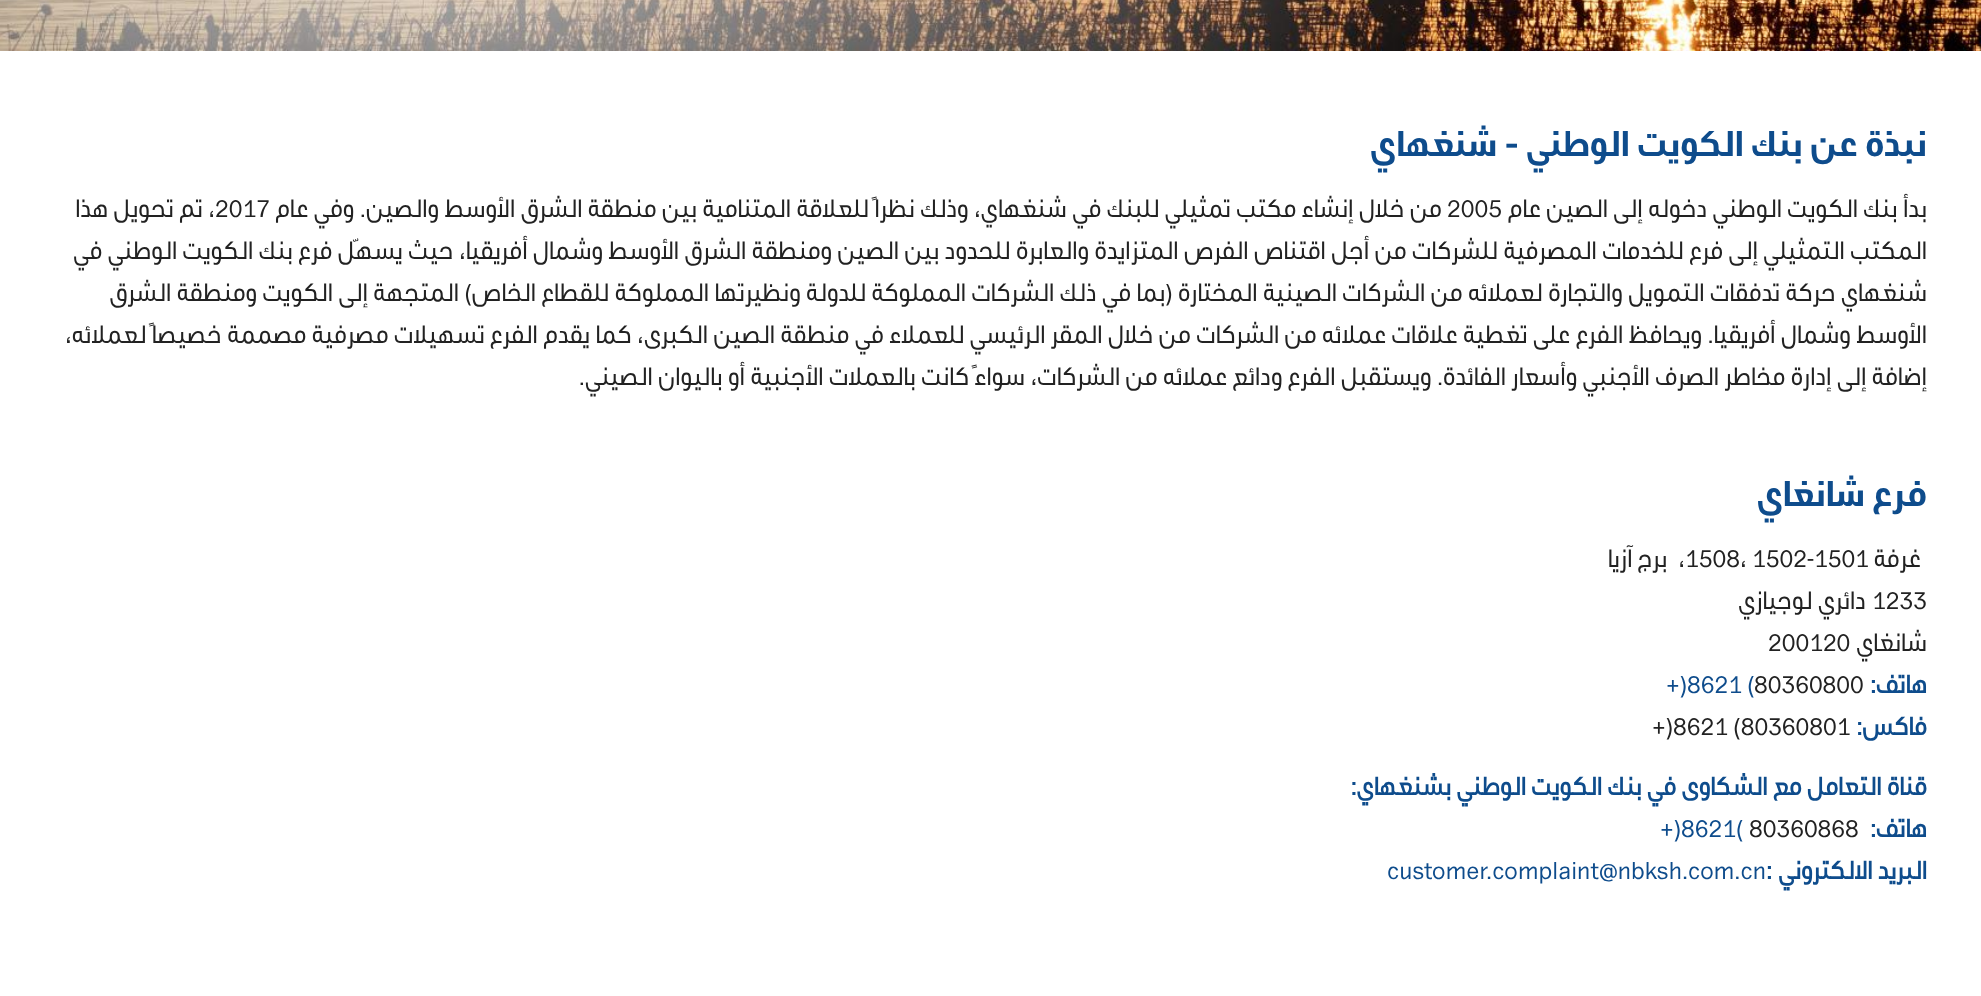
<svg xmlns="http://www.w3.org/2000/svg" width="1981" height="996">
<rect width="100%" height="100%" fill="#fff"/>
<image x="0" y="0" width="1981" height="51" href="media/1.png"/>
<text x="1927" y="156" style="font-family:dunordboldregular;font-size:35px;font-weight:bold;direction:rtl;fill:#0e4c8c">نبذة عن بنك الكويت الوطني - شنغهاي</text>
<text x="1927" y="217" style="font-family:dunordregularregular;font-size:24.5px;direction:rtl;fill:#222">بدأ بنك الكويت الوطني دخوله إلى الصين عام</text>
<text x="1447" y="217" style="font-family:dunordregularregular;font-size:24.5px;fill:#222">2005</text>
<text x="1442" y="217" style="font-family:dunordregularregular;font-size:24.5px;direction:rtl;fill:#222">من خلال إنشاء مكتب تمثيلي للبنك في شنغهاي، وذلك نظراً للعلاقة المتنامية بين منطقة الشرق الأوسط والصين. وفي عام</text>
<text x="215" y="217" style="font-family:dunordregularregular;font-size:24.5px;fill:#222">2017</text>
<text x="215" y="217" style="font-family:dunordregularregular;font-size:24.5px;direction:rtl;fill:#222">، تم تحويل هذا</text>
<text x="1927" y="259" style="font-family:dunordregularregular;font-size:24.5px;direction:rtl;fill:#222">المكتب التمثيلي إلى فرع للخدمات المصرفية للشركات من أجل اقتناص الفرص المتزايدة والعابرة للحدود بين الصين ومنطقة الشرق الأوسط وشمال أفريقيا، حيث يسهّل فرع بنك الكويت الوطني في</text>
<text x="1927" y="301" style="font-family:dunordregularregular;font-size:24.5px;direction:rtl;fill:#222">شنغهاي حركة تدفقات التمويل والتجارة لعملائه من الشركات الصينية المختارة (بما في ذلك الشركات المملوكة للدولة ونظيرتها المملوكة للقطاع الخاص) المتجهة إلى الكويت ومنطقة الشرق</text>
<text x="1927" y="343" style="font-family:dunordregularregular;font-size:24.5px;direction:rtl;fill:#222">الأوسط وشمال أفريقيا. ويحافظ الفرع على تغطية علاقات عملائه من الشركات من خلال المقر الرئيسي للعملاء في منطقة الصين الكبرى، كما يقدم الفرع تسهيلات مصرفية مصممة خصيصاً لعملائه،</text>
<text x="1927" y="385" style="font-family:dunordregularregular;font-size:24.5px;direction:rtl;fill:#222">إضافة إلى إدارة مخاطر الصرف الأجنبي وأسعار الفائدة. ويستقبل الفرع ودائع عملائه من الشركات، سواءً كانت بالعملات الأجنبية أو باليوان الصيني.</text>
<text x="1927" y="506" style="font-family:dunordboldregular;font-size:35px;font-weight:bold;direction:rtl;fill:#0e4c8c">فرع شانغاي</text>
<text x="1921" y="567" style="font-family:dunordregularregular;font-size:24.5px;direction:rtl;fill:#222">غرفة</text>
<text x="1685" y="567" style="font-family:dunordregularregular;font-size:24.5px;fill:#222">1508، 1502-1501</text>
<text x="1685" y="567" style="font-family:dunordregularregular;font-size:24.5px;direction:rtl;fill:#222" xml:space="preserve">،  برج آزيا</text>
<text x="1872" y="609" style="font-family:dunordregularregular;font-size:24.5px;fill:#222">1233</text>
<text x="1866" y="609" style="font-family:dunordregularregular;font-size:24.5px;direction:rtl;fill:#222">دائري لوجيازي</text>
<text x="1927" y="651" style="font-family:dunordregularregular;font-size:24.5px;direction:rtl;fill:#222">شانغاي</text>
<text x="1768" y="651" style="font-family:dunordregularregular;font-size:24.5px;fill:#222">200120</text>
<text x="1927" y="693" style="font-family:dunordregularregular;font-size:24.5px;font-weight:bold;direction:rtl;fill:#0e4c8c">هاتف</text>
<text x="1870" y="693" style="font-family:dunordregularregular;font-size:24.5px;font-weight:bold;fill:#0e4c8c">:</text>
<text x="1754" y="693" style="font-family:dunordregularregular;font-size:24.5px;fill:#222">80360800</text>
<text x="1666" y="693" style="font-family:dunordregularregular;font-size:24.5px;fill:#0e4c8c">+)8621 (</text>
<text x="1927" y="735" style="font-family:dunordregularregular;font-size:24.5px;font-weight:bold;direction:rtl;fill:#0e4c8c">فاكس:</text>
<text x="1652" y="735" style="font-family:dunordregularregular;font-size:24.5px;fill:#222">+)8621 (80360801</text>
<text x="1927" y="795" style="font-family:dunordregularregular;font-size:24.5px;font-weight:bold;direction:rtl;fill:#0e4c8c">قناة التعامل مع الشكاوى في بنك الكويت الوطني بشنغهاي:</text>
<text x="1927" y="837" style="font-family:dunordregularregular;font-size:24.5px;font-weight:bold;direction:rtl;fill:#0e4c8c">هاتف</text>
<text x="1870" y="837" style="font-family:dunordregularregular;font-size:24.5px;font-weight:bold;fill:#0e4c8c">:</text>
<text x="1749" y="837" style="font-family:dunordregularregular;font-size:24.5px;fill:#222">80360868</text>
<text x="1660" y="837" style="font-family:dunordregularregular;font-size:24.5px;fill:#0e4c8c">+)8621(</text>
<text x="1927" y="879" style="font-family:dunordregularregular;font-size:24.5px;font-weight:bold;direction:rtl;fill:#0e4c8c">البريد الالكتروني</text>
<text x="1766" y="879" style="font-family:dunordregularregular;font-size:24.5px;font-weight:bold;fill:#0e4c8c">:</text>
<text x="1387" y="879" style="font-family:dunordregularregular;font-size:24.5px;fill:#0e4c8c">customer.complaint@nbksh.com.cn</text>
</svg>
